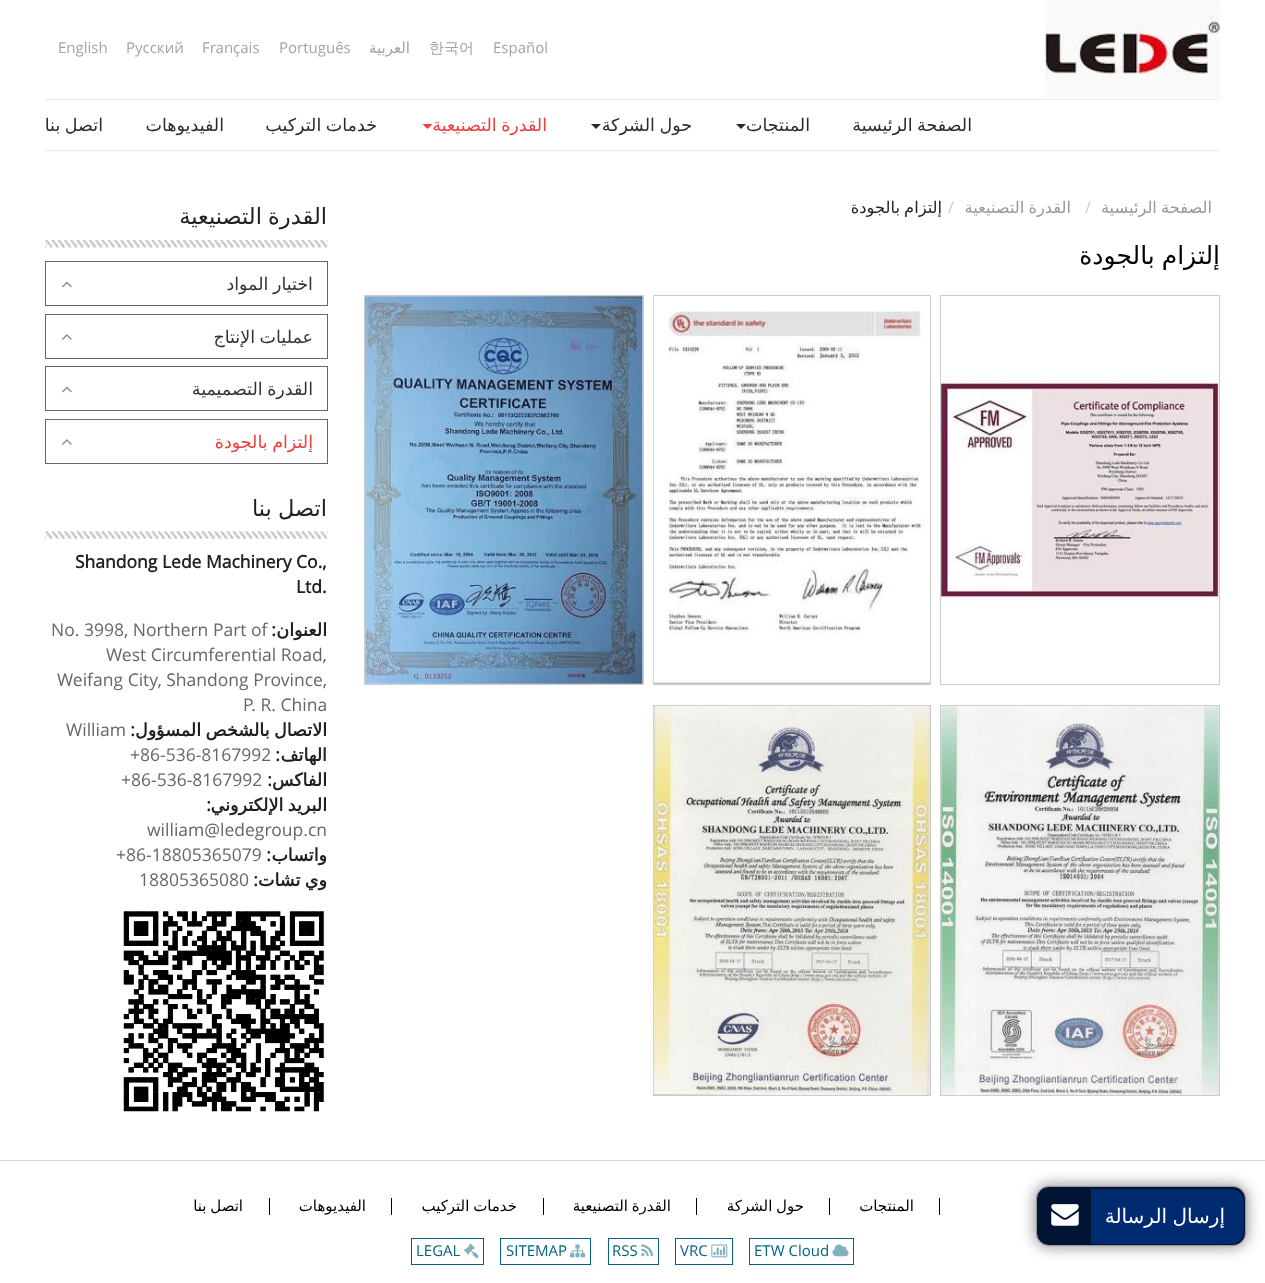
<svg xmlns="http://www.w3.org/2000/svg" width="1265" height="1283">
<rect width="100%" height="100%" fill="#fff"/>
<image x="1045" y="0" width="175" height="98" href="media/1.png"/>
<text x="493" y="53" style="font-family:Open Sans;font-size:15px;fill:#a3a5a0">Español</text>
<text x="429" y="53" style="font-family:WenQuanYi Zen Hei;font-size:15px;font-weight:500;fill:#a3a5a0">한국어</text>
<text x="410" y="53" style="font-family:DejaVu Sans;font-size:15px;direction:rtl;fill:#a3a5a0">العربية</text>
<text x="279" y="53" style="font-family:Open Sans;font-size:15px;fill:#a3a5a0">Português</text>
<text x="202" y="53" style="font-family:Open Sans;font-size:15px;fill:#a3a5a0">Français</text>
<text x="126" y="53" style="font-family:Open Sans;font-size:15px;fill:#a3a5a0">Русский</text>
<text x="58" y="53" style="font-family:Open Sans;font-size:15px;fill:#a3a5a0">English</text>
<rect x="45" y="99" width="1175" height="1" fill="#ececec"/>
<rect x="45" y="150" width="1175" height="1" fill="#ececec"/>
<text x="972" y="131" word-spacing="-1" style="font-family:DejaVu Sans;font-size:17.5px;direction:rtl;fill:#2b2b2b">الصفحة الرئيسية</text>
<text x="810" y="131" style="font-family:DejaVu Sans;font-size:17.5px;direction:rtl;fill:#2b2b2b">المنتجات</text>
<path d="M736 124h10l-5 5z" fill="#2b2b2b"/>
<text x="692" y="131" word-spacing="-1" style="font-family:DejaVu Sans;font-size:17.5px;direction:rtl;fill:#2b2b2b">حول الشركة</text>
<path d="M591 124h10l-5 5z" fill="#2b2b2b"/>
<text x="547" y="131" word-spacing="-1" style="font-family:DejaVu Sans;font-size:17.5px;direction:rtl;fill:#f03c3c">القدرة التصنيعية</text>
<path d="M422.5 124h10l-5 5z" fill="#f03c3c"/>
<text x="377" y="131" word-spacing="-1" style="font-family:DejaVu Sans;font-size:17.5px;direction:rtl;fill:#2b2b2b">خدمات التركيب</text>
<text x="224" y="131" style="font-family:DejaVu Sans;font-size:17.5px;direction:rtl;fill:#2b2b2b">الفيديوهات</text>
<text x="103" y="131" word-spacing="-1" style="font-family:DejaVu Sans;font-size:17.5px;direction:rtl;fill:#2b2b2b">اتصل بنا</text>
<text x="1212" y="213" word-spacing="-1" style="font-family:DejaVu Sans;font-size:16.25px;direction:rtl;fill:#999">الصفحة الرئيسية</text>
<text x="1085" y="213" style="font-family:Open Sans;font-size:16.25px;fill:#ccc">/</text>
<text x="1071" y="213" word-spacing="-1" style="font-family:DejaVu Sans;font-size:16.25px;direction:rtl;fill:#999">القدرة التصنيعية</text>
<text x="948" y="213" style="font-family:Open Sans;font-size:16.25px;fill:#ccc">/</text>
<text x="942" y="213" word-spacing="-1" style="font-family:DejaVu Sans;font-size:16.25px;direction:rtl;fill:#1f1d29">إلتزام بالجودة</text>
<text x="1220" y="264" word-spacing="-1" style="font-family:DejaVu Sans;font-size:25px;direction:rtl;fill:#000">إلتزام بالجودة</text>
<rect x="940.5" y="295.5" width="279" height="389" fill="none" stroke="#ccc"/>
<image x="941" y="373" width="278" height="233" href="media/2.png"/>
<rect x="653.5" y="295.5" width="277" height="389" fill="none" stroke="#ccc"/>
<image x="653" y="296" width="277" height="388" href="media/3.png"/>
<rect x="364.5" y="295.5" width="279" height="389" fill="none" stroke="#ccc"/>
<image x="365" y="296" width="278" height="388" href="media/4.png"/>
<rect x="940.5" y="705.5" width="279" height="390" fill="none" stroke="#ccc"/>
<image x="941" y="706" width="278" height="389" href="media/5.png"/>
<rect x="653.5" y="705.5" width="277" height="390" fill="none" stroke="#ccc"/>
<image x="653" y="706" width="277" height="389" href="media/6.png"/>
<image x="45" y="240" width="283" height="8" href="media/7.png"/>
<text x="327" y="224" word-spacing="-1" style="font-family:DejaVu Sans;font-size:22.5px;direction:rtl;fill:#212121">القدرة التصنيعية</text>
<rect x="45.5" y="261.5" width="282" height="44" fill="none" stroke="#666"/>
<text x="313" y="290" word-spacing="-1" style="font-family:DejaVu Sans;font-size:17.5px;direction:rtl;fill:#333">اختيار المواد</text>
<image x="62" y="281" width="10" height="7" href="media/8.png"/>
<rect x="45.5" y="314.5" width="282" height="44" fill="none" stroke="#666"/>
<text x="313" y="343" word-spacing="-1" style="font-family:DejaVu Sans;font-size:17.5px;direction:rtl;fill:#333">عمليات الإنتاج</text>
<image x="62" y="334" width="10" height="6" href="media/9.png"/>
<rect x="45.5" y="366.5" width="282" height="44" fill="none" stroke="#666"/>
<text x="313" y="395" word-spacing="-1" style="font-family:DejaVu Sans;font-size:17.5px;direction:rtl;fill:#333">القدرة التصميمية</text>
<image x="62" y="386" width="10" height="7" href="media/8.png"/>
<rect x="45.5" y="419.5" width="282" height="44" fill="none" stroke="#666"/>
<text x="313" y="448" word-spacing="-1" style="font-family:DejaVu Sans;font-size:17.5px;direction:rtl;fill:#f03c3c">إلتزام بالجودة</text>
<image x="62" y="439" width="10" height="6" href="media/9.png"/>
<image x="45" y="531" width="283" height="8" href="media/10.png"/>
<text x="327" y="516" word-spacing="-1" style="font-family:DejaVu Sans;font-size:22.5px;direction:rtl;fill:#212121">اتصل بنا</text>
<text x="75" y="568" style="font-family:Open Sans;font-size:17.5px;font-weight:bold;fill:#212121">Shandong Lede Machinery Co.,</text>
<text x="296" y="593" style="font-family:Open Sans;font-size:17.5px;font-weight:bold;fill:#212121">Ltd.</text>
<text x="327" y="636" style="font-family:DejaVu Sans;font-size:17.5px;font-weight:bold;direction:rtl;fill:#212121">العنوان</text>
<text x="276" y="636" style="font-family:Open Sans;font-size:17.5px;font-weight:bold;direction:rtl;fill:#212121">:</text>
<text x="51" y="636" style="font-family:Open Sans;font-size:17.5px;fill:#666">No. 3998, Northern Part of</text>
<text x="106" y="661" style="font-family:Open Sans;font-size:17.5px;fill:#666">West Circumferential Road,</text>
<text x="57" y="686" style="font-family:Open Sans;font-size:17.5px;fill:#666">Weifang City, Shandong Province,</text>
<text x="243" y="711" style="font-family:Open Sans;font-size:17.5px;fill:#666">P. R. China</text>
<text x="327" y="736" word-spacing="-1" style="font-family:DejaVu Sans;font-size:17.5px;font-weight:bold;direction:rtl;fill:#212121">الاتصال بالشخص المسؤول</text>
<text x="135" y="736" style="font-family:Open Sans;font-size:17.5px;font-weight:bold;direction:rtl;fill:#212121">:</text>
<text x="66" y="736" style="font-family:Open Sans;font-size:17.5px;fill:#666">William</text>
<text x="327" y="761" style="font-family:DejaVu Sans;font-size:17.5px;font-weight:bold;direction:rtl;fill:#212121">الهاتف</text>
<text x="280" y="761" style="font-family:Open Sans;font-size:17.5px;font-weight:bold;direction:rtl;fill:#212121">:</text>
<text x="130" y="761" style="font-family:Open Sans;font-size:17.5px;fill:#666">+86-536-8167992</text>
<text x="327" y="786" style="font-family:DejaVu Sans;font-size:17.5px;font-weight:bold;direction:rtl;fill:#212121">الفاكس</text>
<text x="272" y="786" style="font-family:Open Sans;font-size:17.5px;font-weight:bold;direction:rtl;fill:#212121">:</text>
<text x="121" y="786" style="font-family:Open Sans;font-size:17.5px;fill:#666">+86-536-8167992</text>
<text x="327" y="811" word-spacing="-1" style="font-family:DejaVu Sans;font-size:17.5px;font-weight:bold;direction:rtl;fill:#212121">البريد الإلكتروني</text>
<text x="211" y="811" style="font-family:Open Sans;font-size:17.5px;font-weight:bold;direction:rtl;fill:#212121">:</text>
<text x="147" y="836" style="font-family:Open Sans;font-size:17.5px;fill:#666">william@ledegroup.cn</text>
<text x="327" y="861" style="font-family:DejaVu Sans;font-size:17.5px;font-weight:bold;direction:rtl;fill:#212121">واتساب</text>
<text x="271" y="861" style="font-family:Open Sans;font-size:17.5px;font-weight:bold;direction:rtl;fill:#212121">:</text>
<text x="116" y="861" style="font-family:Open Sans;font-size:17.5px;fill:#666">+86-18805365079</text>
<text x="327" y="886" word-spacing="-1" style="font-family:DejaVu Sans;font-size:17.5px;font-weight:bold;direction:rtl;fill:#212121">وي تشات</text>
<text x="258" y="886" style="font-family:Open Sans;font-size:17.5px;font-weight:bold;direction:rtl;fill:#212121">:</text>
<text x="139" y="886" style="font-family:Open Sans;font-size:17.5px;fill:#666">18805365080</text>
<image x="123" y="911" width="201" height="201" href="media/11.png"/>
<rect y="1160" width="1265" height="1" fill="#d9d9d9"/>
<rect x="1036" y="1186" width="210" height="60" rx="13" fill="#00000080" filter="blur(7.5px)"/>
<rect x="1036.5" y="1186.5" width="209" height="59" rx="12.5" fill="#001434" stroke="#999"/>
<path d="M1091 1189h140c7 0 13 6 13 13v29c0 7-6 13-13 13h-140z" fill="#002b70"/>
<text x="1225" y="1223" word-spacing="-1" style="font-family:DejaVu Sans;font-size:20px;direction:rtl;fill:#fff">إرسال الرسالة</text>
<image x="1051" y="1204" width="28" height="22" href="media/12.png"/>
<text x="914" y="1211" style="font-family:DejaVu Sans;font-size:15px;direction:rtl;fill:#000">المنتجات</text>
<rect x="939" y="1198" width="1" height="17" fill="#000"/>
<text x="804" y="1211" word-spacing="-1" style="font-family:DejaVu Sans;font-size:15px;direction:rtl;fill:#000">حول الشركة</text>
<rect x="829" y="1198" width="1" height="17" fill="#000"/>
<text x="671" y="1211" word-spacing="-1" style="font-family:DejaVu Sans;font-size:15px;direction:rtl;fill:#000">القدرة التصنيعية</text>
<rect x="696" y="1198" width="1" height="17" fill="#000"/>
<text x="517" y="1211" word-spacing="-1" style="font-family:DejaVu Sans;font-size:15px;direction:rtl;fill:#000">خدمات التركيب</text>
<rect x="543" y="1198" width="1" height="17" fill="#000"/>
<text x="366" y="1211" style="font-family:DejaVu Sans;font-size:15px;direction:rtl;fill:#000">الفيديوهات</text>
<rect x="391" y="1198" width="1" height="17" fill="#000"/>
<text x="243" y="1211" word-spacing="-1" style="font-family:DejaVu Sans;font-size:15px;direction:rtl;fill:#000">اتصل بنا</text>
<rect x="269" y="1198" width="1" height="17" fill="#000"/>
<rect x="749.5" y="1238.5" width="104" height="26" fill="none" stroke="#046380"/>
<image x="832" y="1244" width="17" height="13" href="media/13.png"/>
<text x="754" y="1256" style="font-family:Open Sans;font-size:15px;fill:#046380">ETW Cloud</text>
<rect x="675.5" y="1238.5" width="57" height="26" fill="none" stroke="#046380"/>
<image x="711" y="1244" width="17" height="14" href="media/14.png"/>
<text x="680" y="1256" style="font-family:Open Sans;font-size:15px;fill:#046380">VRC</text>
<rect x="608.5" y="1238.5" width="50" height="26" fill="none" stroke="#046380"/>
<image x="641" y="1244" width="12" height="13" href="media/15.png"/>
<text x="612" y="1256" style="font-family:Open Sans;font-size:15px;fill:#046380">RSS</text>
<rect x="500.5" y="1238.5" width="90" height="26" fill="none" stroke="#046380"/>
<image x="570" y="1244" width="15" height="14" href="media/16.png"/>
<text x="506" y="1256" style="font-family:Open Sans;font-size:15px;fill:#046380">SITEMAP</text>
<rect x="411.5" y="1238.5" width="72" height="26" fill="none" stroke="#046380"/>
<image x="464" y="1243" width="15" height="16" href="media/17.png"/>
<text x="416" y="1256" style="font-family:Open Sans;font-size:15px;fill:#046380">LEGAL</text>
</svg>
